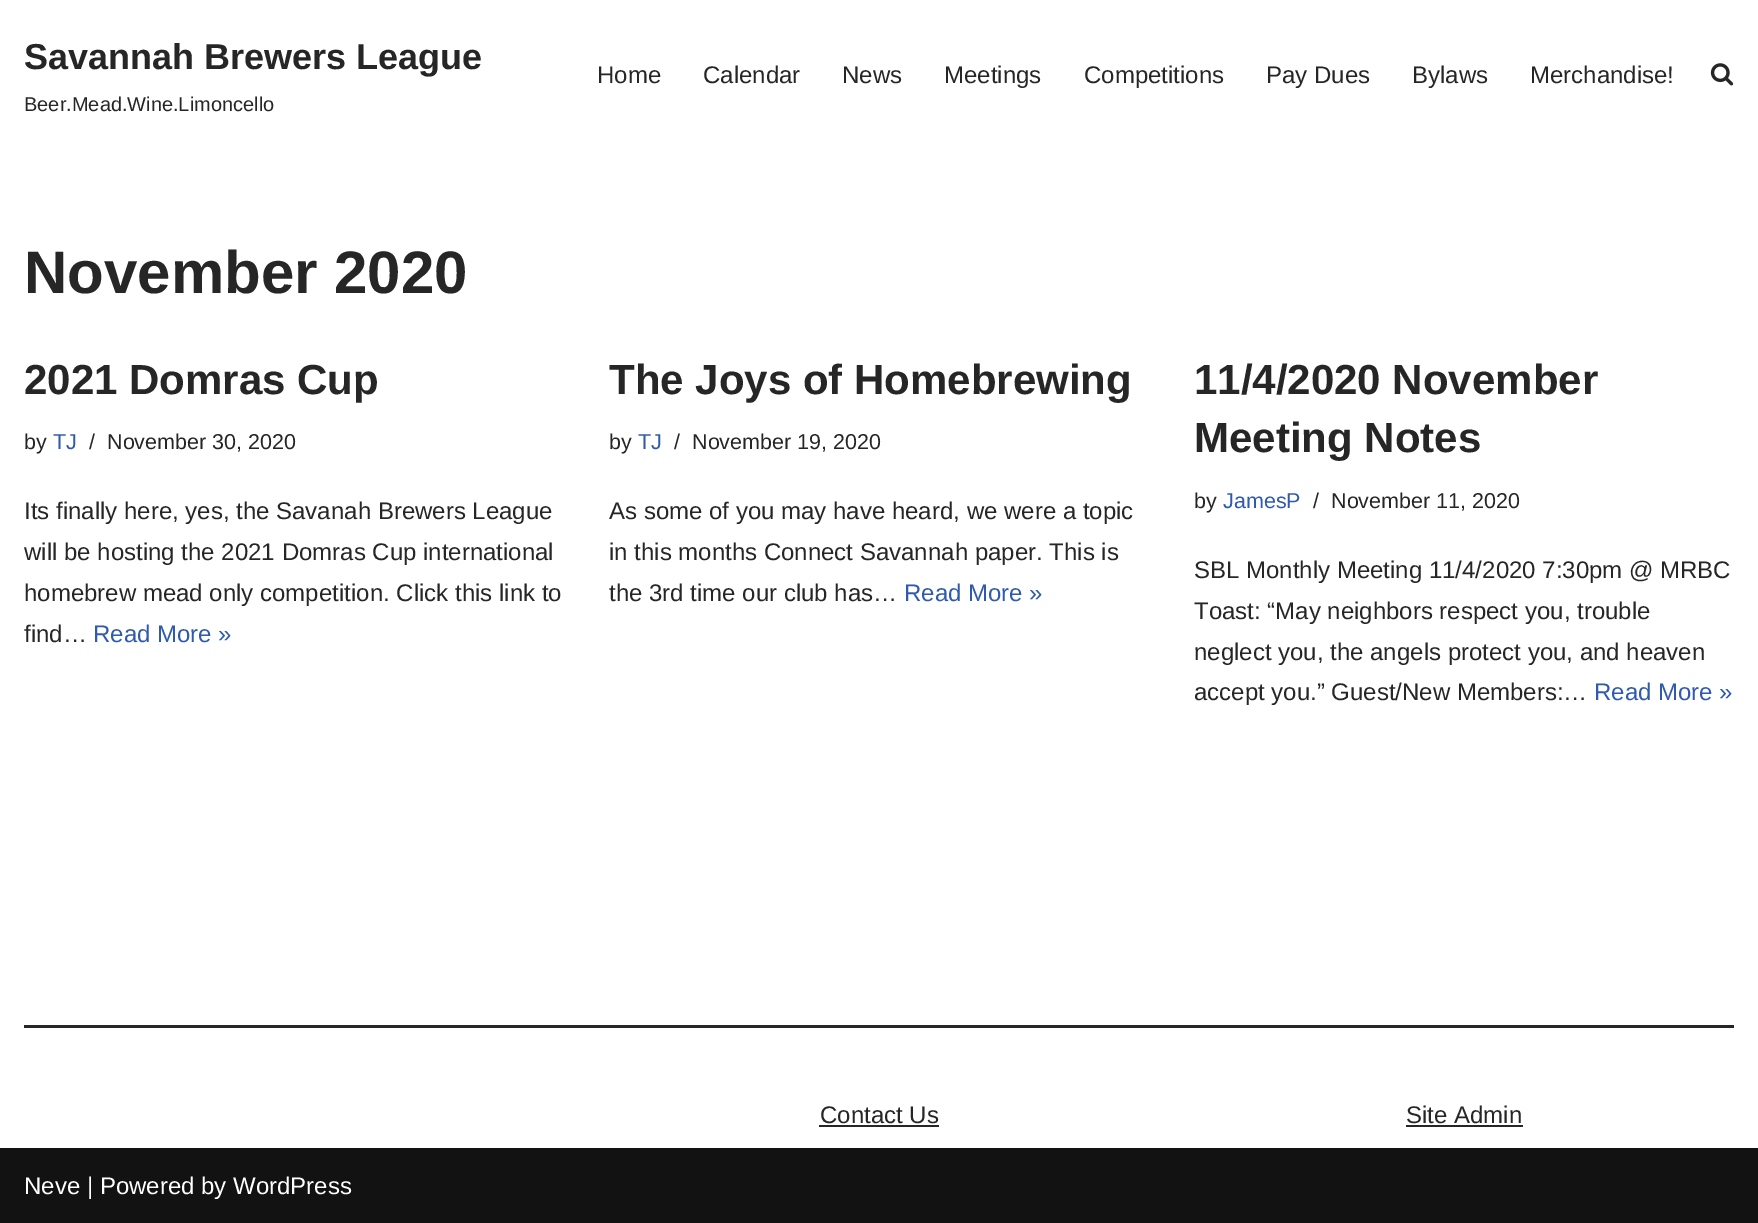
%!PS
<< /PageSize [1758 1223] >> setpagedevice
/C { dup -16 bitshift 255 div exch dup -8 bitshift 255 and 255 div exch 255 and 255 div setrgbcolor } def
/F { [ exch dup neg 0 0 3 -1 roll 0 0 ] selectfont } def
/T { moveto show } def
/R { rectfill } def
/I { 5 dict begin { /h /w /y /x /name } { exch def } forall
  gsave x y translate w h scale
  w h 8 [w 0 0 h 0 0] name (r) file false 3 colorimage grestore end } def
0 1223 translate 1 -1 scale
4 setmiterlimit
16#FFFFFF C
0 0 1758 1223 R
/LiberationSans-Bold 36 F
16#272626 C
(Savannah Brewers League) 24 69 T
/LiberationSans-Regular 20 F
(Beer.Mead.Wine.Limoncello) 24 111 T
/LiberationSans-Regular 24 F
(Home) 597 83 T
(Calendar) 703 83 T
(News) 842 83 T
(Meetings) 944 83 T
(Competitions) 1084 83 T
(Pay Dues) 1266 83 T
(Bylaws) 1412 83 T
(Merchandise!) 1530 83 T
(1.rgb) 1710 63 24 23 I
/LiberationSans-Bold 60 F
(November 2020) 24 293 T
/LiberationSans-Bold 42 F
(2021 Domras Cup) 24 394 T
/LiberationSans-Regular 21.5 F
(by) 24 449 T
16#2F5AAE C
(TJ) 53 449 T
16#272626 C
(/) 89 449 T
(November 30, 2020) 107 449 T
/LiberationSans-Regular 24 F
(Its finally here, yes, the Savanah Brewers League) 24 519 T
(will be hosting the 2021 Domras Cup international) 24 560 T
(homebrew mead only competition. Click this link to) 24 601 T
(find…) 24 642 T
16#2F5AAE C
(Read More ») 93 642 T
/LiberationSans-Bold 42 F
16#272626 C
(The Joys of Homebrewing) 609 394 T
/LiberationSans-Regular 21.5 F
(by) 609 449 T
16#2F5AAE C
(TJ) 638 449 T
16#272626 C
(/) 674 449 T
(November 19, 2020) 692 449 T
/LiberationSans-Regular 24 F
(As some of you may have heard, we were a topic) 609 519 T
(in this months Connect Savannah paper. This is) 609 560 T
(the 3rd time our club has…) 609 601 T
16#2F5AAE C
(Read More ») 904 601 T
/LiberationSans-Bold 42 F
16#272626 C
(11/4/2020 November) 1194 394 T
(Meeting Notes) 1194 452 T
/LiberationSans-Regular 21.5 F
(by) 1194 508 T
16#2F5AAE C
(JamesP) 1223 508 T
16#272626 C
(/) 1313 508 T
(November 11, 2020) 1331 508 T
/LiberationSans-Regular 24 F
(SBL Monthly Meeting 11/4/2020 7:30pm @ MRBC) 1194 578 T
(Toast: “May neighbors respect you, trouble) 1194 619 T
(neglect you, the angels protect you, and heaven) 1194 660 T
(accept you.” Guest/New Members:…) 1194 700 T
16#2F5AAE C
(Read More ») 1594 700 T
16#272626 C
24 1025 1710 3 R
(Contact Us) 820 1123 T
819 1125 120 2 R
(Site Admin) 1406 1123 T
1406 1125 117 2 R
16#121212 C
0 1148 1758 75 R
16#FFFFFF C
(Neve | Powered by WordPress) 24 1194 T
showpage
